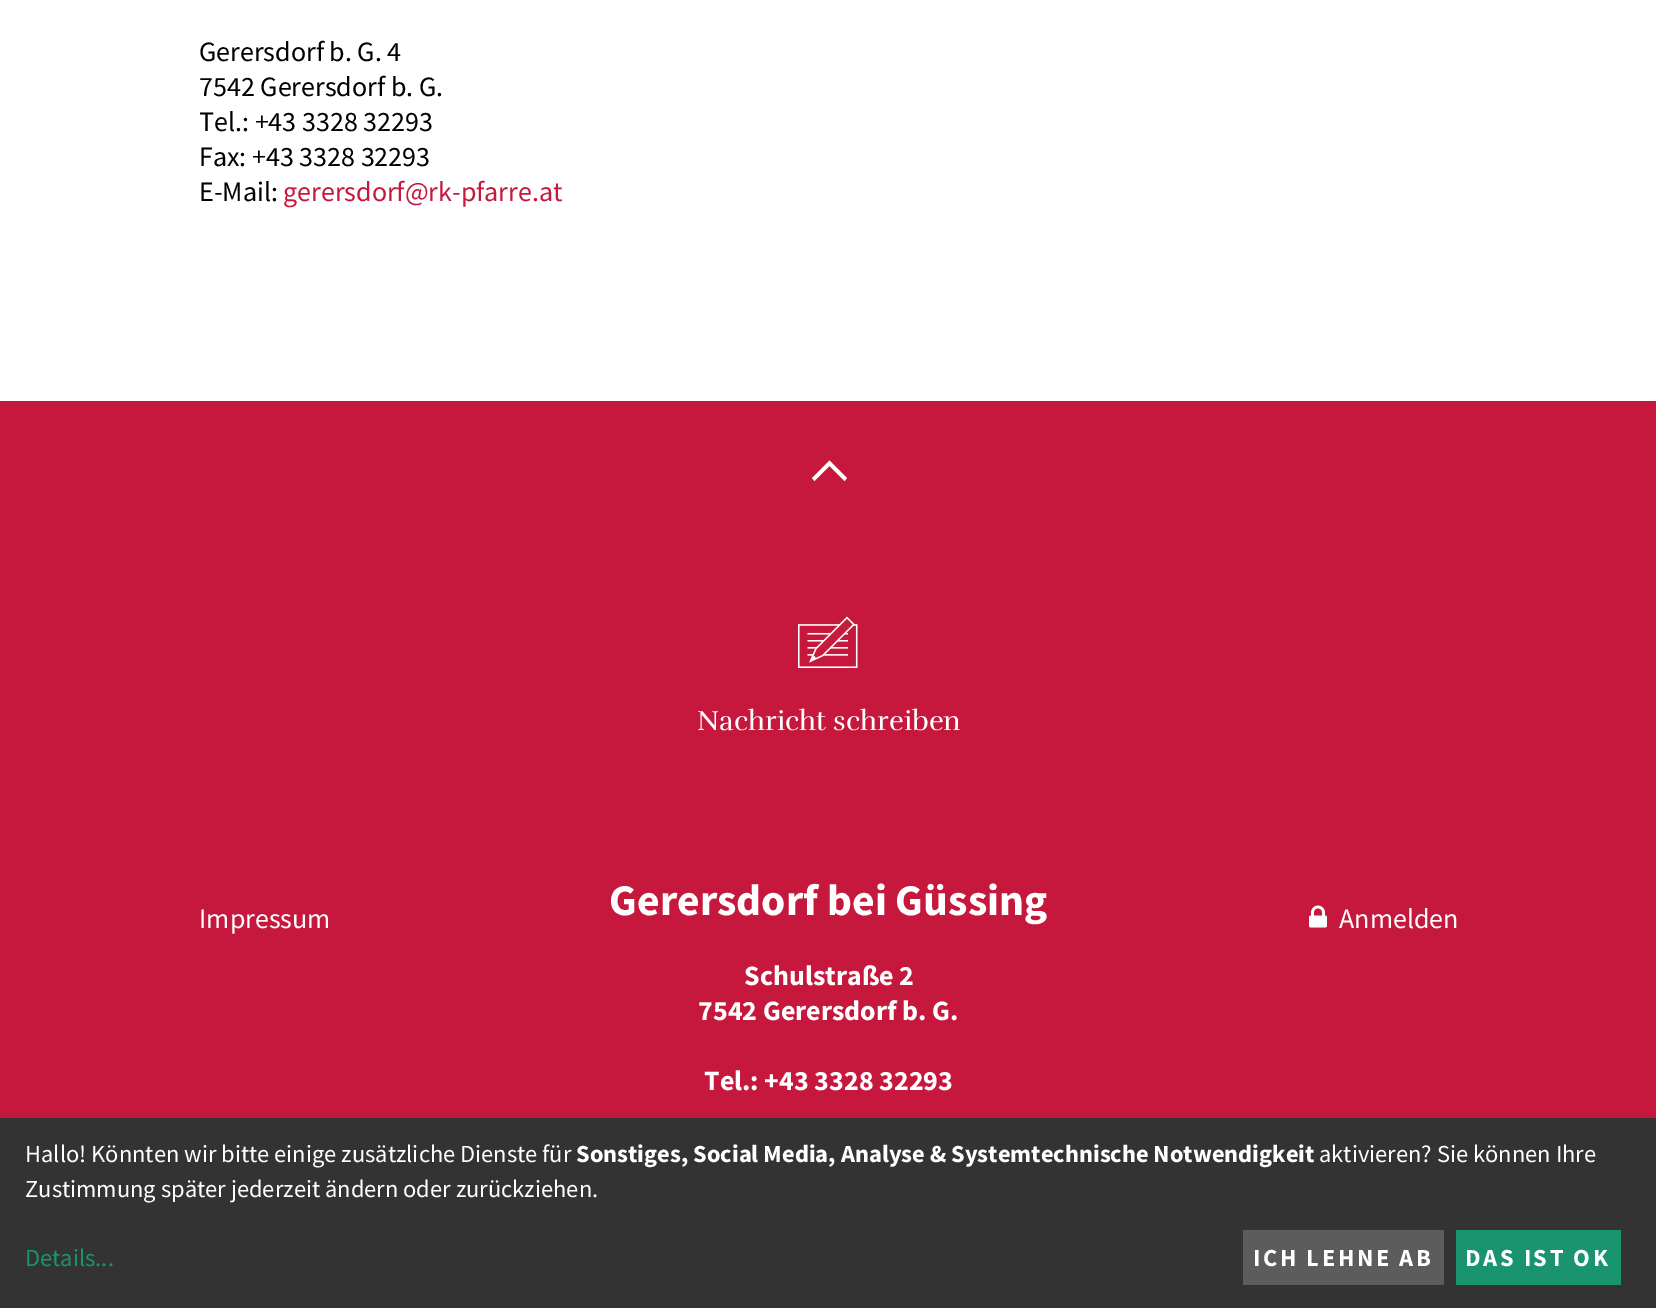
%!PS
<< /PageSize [1656 1308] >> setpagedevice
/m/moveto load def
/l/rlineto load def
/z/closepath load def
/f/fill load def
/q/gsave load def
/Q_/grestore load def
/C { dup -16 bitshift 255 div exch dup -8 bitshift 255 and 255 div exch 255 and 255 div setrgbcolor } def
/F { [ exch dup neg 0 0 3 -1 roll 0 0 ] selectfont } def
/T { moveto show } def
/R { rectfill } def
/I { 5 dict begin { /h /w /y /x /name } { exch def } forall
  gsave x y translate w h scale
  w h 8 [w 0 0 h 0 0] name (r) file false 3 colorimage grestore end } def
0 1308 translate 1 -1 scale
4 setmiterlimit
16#FFFFFF C
0 0 1656 1308 R
/SourceSansPro-Regular 28 F
16#000000 C
(Gerersdorf b. G. 4) 199 61 T
(7542 Gerersdorf b. G.) 199 96 T
q
200 0 1260 208 rectclip
(Tel.: +43 3328 32293) 199 131 T
Q_
(Fax: +43 3328 32293) 199 166 T
(E-Mail:) 199 201 T
16#C6183D C
(gerersdorf@rk-pfarre.at) 283 201 T
0 401 1656 717 R
16#FFFFFF C
814.5 481 m -2.5 -3 l 17.5 -17.5 l 17.5 17.5 l -2.5 3 l -15 -15 l z f
(1.rgb) 798 616 60 52 I
/Rufina-Regular 28 F
(Nachricht schreiben) 697 730 T
/SourceSansPro-Regular 28 F
(Impressum) 199 928 T
/SourceSansPro-Bold 43.75 F
(Gerersdorf bei Güssing) 609 915 T
/SourceSansPro-Bold 28 F
(Schulstraße 2) 744 985 T
(7542 Gerersdorf b. G.) 698 1020 T
(Tel.: +43 3328 32293) 704 1090 T
(2.rgb) 1309 905 18 23 I
/SourceSansPro-Regular 28 F
(Anmelden) 1339 928 T
16#333333 C
0 1118 1656 190 R
/SourceSansPro-Regular 24.5 F
16#FFFFFF C
(Hallo! Könnten wir bitte einige zusätzliche Dienste für) 25 1162 T
/SourceSansPro-Bold 24.5 F
(Sonstiges, Social Media, Analyse & Systemtechnische Notwendigkeit) 576 1162 T
/SourceSansPro-Regular 24.5 F
(aktivieren? Sie können Ihre) 1319 1162 T
(Zustimmung später jederzeit ändern oder zurückziehen.) 25 1197 T
16#1A936F C
(Details...) 25 1266 T
16#5C5C5C C
1243 1230 201 55 R
/SourceSansPro-Bold 24.5 F
16#FFFFFF C
1253 1266 m 2.6 0 (ICH LEHNE AB) ashow
16#1A936F C
1456 1230 165 55 R
16#FFFFFF C
1465 1266 m 2.6 0 (DAS IST OK) ashow
showpage
